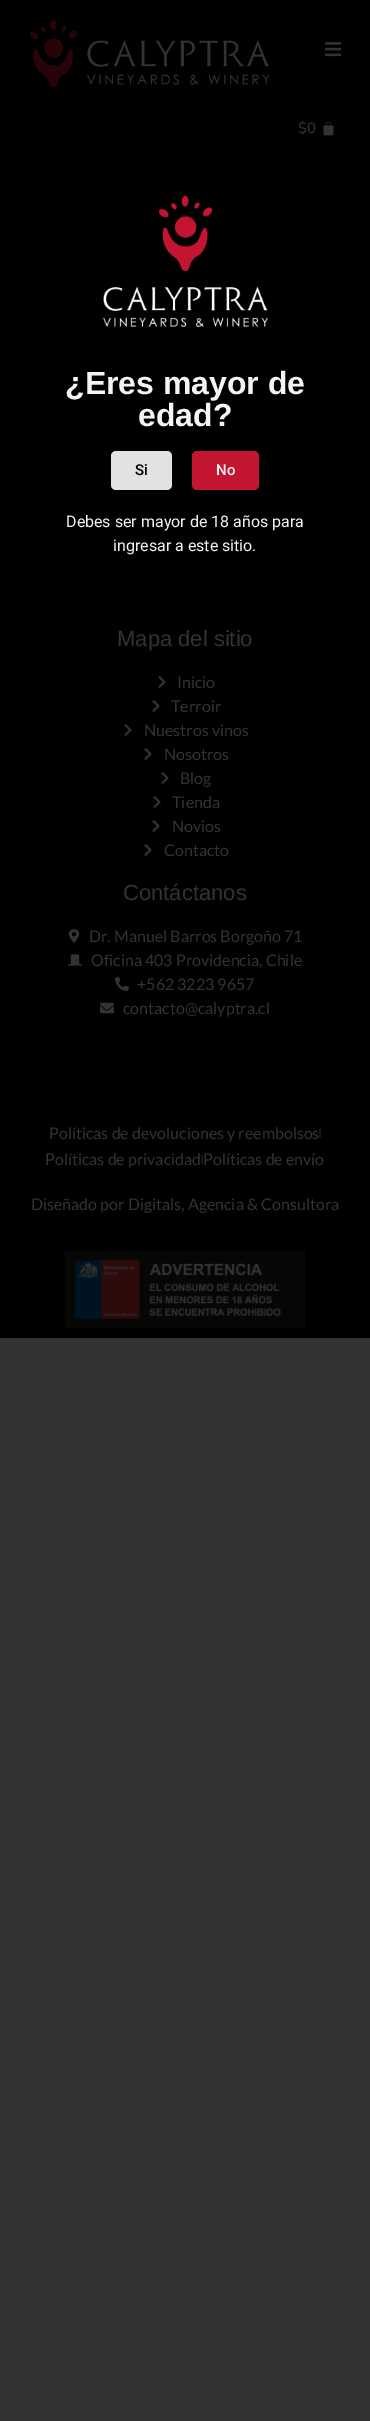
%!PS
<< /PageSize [370 2421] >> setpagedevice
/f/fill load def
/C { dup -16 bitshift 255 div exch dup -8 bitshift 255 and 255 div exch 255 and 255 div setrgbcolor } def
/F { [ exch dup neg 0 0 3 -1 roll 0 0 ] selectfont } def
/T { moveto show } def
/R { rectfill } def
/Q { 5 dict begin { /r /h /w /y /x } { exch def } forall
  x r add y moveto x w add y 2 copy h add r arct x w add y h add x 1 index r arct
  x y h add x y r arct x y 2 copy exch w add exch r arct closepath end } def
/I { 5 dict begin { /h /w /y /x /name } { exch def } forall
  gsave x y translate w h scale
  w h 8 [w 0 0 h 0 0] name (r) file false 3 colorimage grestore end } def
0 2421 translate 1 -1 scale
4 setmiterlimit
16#333333 C
0 0 370 2421 R
16#000000 C
0 0 370 155 R
(1.rgb) 30 20 240 68 I
(2.rgb) 325 42 16 15 I
/Nunito-Medium 15 F
16#333333 C
($0) 298 133 T
(3.rgb) 323 121 11 15 I
16#000000 C
0 155 370 1183 R
(4.rgb) 103 195 165 132 I
/LiberationSans-Bold 32 F
16#F5F5F5 C
(¿Eres mayor de) 65 394 T
(edad?) 138 426 T
16#E2E2E2 C
111 451 61 39 5 Q f
/Roboto-Medium 15 F
16#000000 C
(Si) 135 475 T
16#C31633 C
192 451 67 39 5 Q f
16#F5F5F5 C
(No) 216 475 T
/Roboto-Regular 16 F
(Debes ser mayor de 18 años para) 66 527 T
(ingresar a este sitio.) 113 551 T
/LiberationSans-Regular 22 F
16#333333 C
(Mapa del sitio) 117 646 T
(5.rgb) 158 676 8 12 I
/Lato-Regular 16 F
(Inicio) 177 688 T
(5.rgb) 152 700 8 12 I
(Terroir) 171 712 T
(5.rgb) 124 724 8 12 I
(Nuestros vinos) 144 736 T
(5.rgb) 144 748 8 12 I
(Nosotros) 164 760 T
(5.rgb) 161 772 8 12 I
(Blog) 180 784 T
(5.rgb) 153 796 8 12 I
(Tienda) 172 808 T
(5.rgb) 152 820 8 12 I
(Novios) 172 832 T
(5.rgb) 144 844 8 12 I
(Contacto) 164 856 T
/LiberationSans-Regular 22 F
(Contáctanos) 123 900 T
(6.rgb) 68 929 12 14 I
/Lato-Regular 16 F
(Dr. Manuel Barros Borgoño 71) 89 942 T
(7.rgb) 68 954 14 12 I
(Oficina 403 Providencia, Chile) 91 966 T
(8.rgb) 115 977 14 14 I
(+562 3223 9657) 137 990 T
(9.rgb) 100 1002 14 12 I
(contacto@calyptra.cl) 123 1014 T
(Políticas de devoluciones y reembolsos) 49 1139 T
16#181818 C
319 1129 2 9 R
16#333333 C
(Políticas de privacidad) 45 1165 T
16#181818 C
201 1155 2 9 R
16#333333 C
(Políticas de envío) 203 1165 T
(Diseñado por Digitals, Agencia & Consultora) 31 1210 T
(10.rgb) 65 1251 240 77 I
showpage
